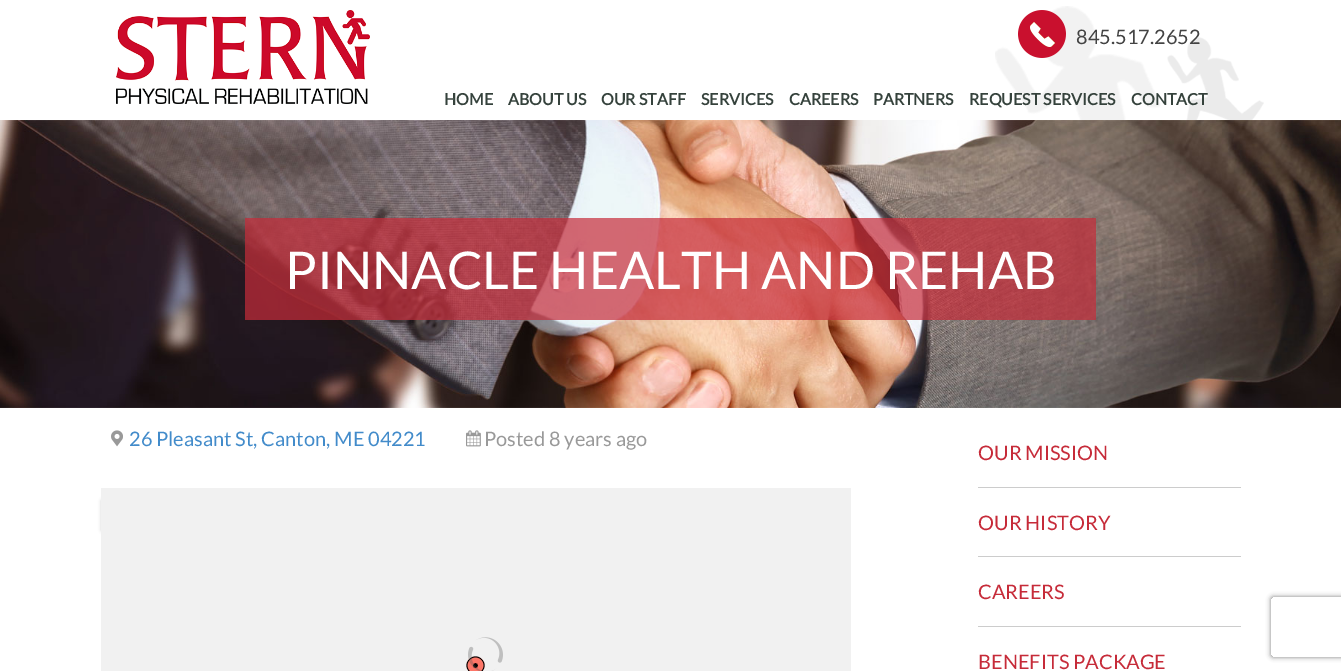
%!PS
<< /PageSize [1341 671] /PageUsesTransparency true >> setpagedevice
/m/moveto load def
/l/rlineto load def
/c/rcurveto load def
/z/closepath load def
/q/gsave load def
/Q_/grestore load def
/C { dup -16 bitshift 255 div exch dup -8 bitshift 255 and 255 div exch 255 and 255 div setrgbcolor } def
/F { [ exch dup neg 0 0 3 -1 roll 0 0 ] selectfont } def
/T { moveto show } def
/R { rectfill } def
/A { dup .setfillconstantalpha .setstrokeconstantalpha } def
/Q { 5 dict begin { /r /h /w /y /x } { exch def } forall
  x r add y moveto x w add y 2 copy h add r arct x w add y h add x 1 index r arct
  x y h add x y r arct x y 2 copy exch w add exch r arct closepath end } def
/S { 12 dict begin { /a /b /q /h /w /y /x } { exch def } forall gsave /was 0 def
  9 -2 -9 { dup b mul 4 div /e exch def 1 sub .425 mul 2.718 exch exp 1 add a .99 .min exch div /now exch def
    1 1 now sub 1 was sub div sub A /was now def
    w h .min e 2 mul add 0 gt { x e sub y e sub w e 2 mul add h e 2 mul add
      q e add b .6 mul add w h .min 2 div e add .min 0 .max Q fill } if } for grestore end } def
/I { 5 dict begin { /h /w /y /x /name } { exch def } forall
  gsave x y translate w h scale
  w h 8 [w 0 0 h 0 0] name (r) file false 3 colorimage grestore end } def
0 .pushpdf14devicefilter
0 671 translate 1 -1 scale
4 setmiterlimit
16#FFFFFF C
0 0 1341 671 R
(1.rgb) 995 6 269 114 I
(2.rgb) 116 10 254 94 I
(3.rgb) 1018 10 48 48 I
/Lato-Regular 20 F
16#444444 C
(845.517.2652) 1076 44 T
/Lato-Bold 16 F
16#35423C C
(HOME) 444 105 T
(ABOUT US) 508 105 T
(OUR STAFF) 601 105 T
(SERVICES) 701 105 T
(CAREERS) 789 105 T
(PARTNERS) 873 105 T
(REQUEST SERVICES) 969 105 T
(CONTACT) 1131 105 T
(4.rgb) 0 120 1341 288 I
0.7 A
16#C62B39 C
245 218 851 102 R
/Lato-Regular 52 F
1 A
16#FFFFFF C
(PINNACLE HEALTH AND REHAB) 285 289 T
(5.rgb) 111 430 12 17 I
/Lato-Regular 20 F
16#428BCA C
(26 Pleasant St, Canton, ME 04221) 129 446 T
(6.rgb) 466 430 15 17 I
16#999999 C
(Posted 8 years ago) 484 446 T
16#000000 C
102 500 26 31 1 2 .3 S
16#F1F1F1 C
101 488 750 183 R
(7.rgb) 466 656 19 15 I
(8.rgb) 468 637 35 34 I
16#CCCCCC C
978 487 263 1 R
16#C62B39 C
(OUR MISSION) 978 460 T
16#CCCCCC C
978 556 263 1 R
16#C62B39 C
(OUR HISTORY) 978 530 T
16#CCCCCC C
978 626 263 1 R
16#C62B39 C
(CAREERS) 978 599 T
(BENEFITS PACKAGE) 978 669 T
q
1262 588 m 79 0 l 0 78 l -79 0 l z 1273 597 m 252 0 l 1 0 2 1 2 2 c 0 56 l 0 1 -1 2 -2 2 c -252 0 l -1 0 -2 -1 -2 -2 c 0 -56 l 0 -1 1 -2 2 -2 c z eoclip newpath
16#808080 C
1271 597 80 60 2 2.5 1 S
Q_
.poppdf14devicefilter showpage
